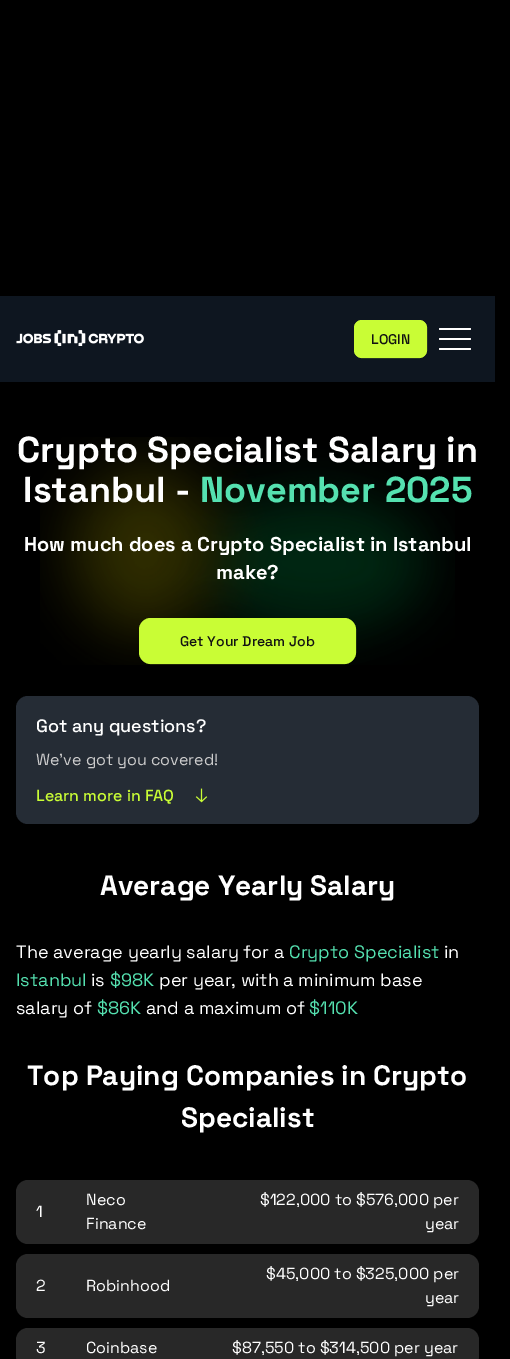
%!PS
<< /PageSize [510 1359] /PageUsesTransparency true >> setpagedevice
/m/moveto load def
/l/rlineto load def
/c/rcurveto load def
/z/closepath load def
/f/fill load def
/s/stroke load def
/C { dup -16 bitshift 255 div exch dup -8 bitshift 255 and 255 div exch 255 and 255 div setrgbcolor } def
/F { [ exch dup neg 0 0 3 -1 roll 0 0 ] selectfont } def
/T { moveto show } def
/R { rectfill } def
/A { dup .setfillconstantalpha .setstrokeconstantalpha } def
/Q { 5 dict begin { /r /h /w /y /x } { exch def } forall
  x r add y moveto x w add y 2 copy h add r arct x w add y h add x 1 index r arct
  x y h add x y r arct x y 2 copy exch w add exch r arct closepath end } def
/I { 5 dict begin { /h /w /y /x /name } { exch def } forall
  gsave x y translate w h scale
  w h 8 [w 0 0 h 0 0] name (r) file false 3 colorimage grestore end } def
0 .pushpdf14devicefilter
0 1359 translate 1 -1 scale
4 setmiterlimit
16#000000 C
0 0 510 1359 R
16#0E1620 C
0 296 495 86 R
(1.rgb) 16 330 128 16 I
16#C9FD35 C
354 320 73 38 8 Q f
0.5 A
354.5 320.5 72 37 7.5 Q s
/SpaceGrotesk-Medium 14 F
1 A
16#121212 C
(LOGIN) 371 344 T
16#FFFFFF C
439 338 32 2 1 Q f
439 328 32 2 1 Q f
439 348 32 2 1 Q f
(2.rgb) 40 437 415 228 I
/SpaceGrotesk-Bold 36 F
(Crypto Specialist Salary in) 17 462 T
(Istanbul -) 23 502 T
16#55E1B0 C
(November 2025) 200 502 T
/SpaceGrotesk-Bold 20 F
16#FFFFFF C
(How much does a Crypto Specialist in Istanbul) 24 551 T
(make?) 216 579 T
16#C9FD35 C
139 618 217 46 12 Q f
0.5 A
139.5 618.5 216 45 11.5 Q s
/SpaceGrotesk-Medium 14 F
1 A
16#121212 C
(Get Your Dream Job) 180 646 T
16#252C35 C
16 696 463 128 12 Q f
/SpaceGrotesk-Medium 18 F
16#FFFFFF C
(Got any questions?) 36 732 T
/SpaceGrotesk-Regular 16 F
16#CCCCCC C
(We’ve got you covered!) 36 765 T
/SpaceGrotesk-Medium 16 F
16#C9FD35 C
(Learn more in FAQ) 36 801 T
(3.rgb) 195 788 13 15 I
/SpaceGrotesk-Bold 28 F
16#FFFFFF C
(Average Yearly Salary) 100 895 T
/SpaceGrotesk-Regular 18 F
(The average yearly salary for a) 16 958 T
16#55E1B0 C
(Crypto Specialist) 289 958 T
16#FFFFFF C
(in) 444 958 T
16#55E1B0 C
(Istanbul) 16 986 T
16#FFFFFF C
(is) 91 986 T
16#55E1B0 C
($98K) 110 986 T
16#FFFFFF C
(per year, with a minimum base) 159 986 T
(salary of) 16 1014 T
16#55E1B0 C
($86K) 97 1014 T
16#FFFFFF C
(and a maximum of) 146 1014 T
16#55E1B0 C
($110K) 309 1014 T
/SpaceGrotesk-Bold 28 F
16#FFFFFF C
(Top Paying Companies in Crypto) 27 1085 T
(Specialist) 181 1127 T
16#282828 C
28 1180 m 38 0 l 0 64 l -38 0 l -6.5 0 -12 -5.5 -12 -12 c 0 -40 l 0 -6.5 5.5 -12 12 -12 c z f
/SpaceGrotesk-Regular 16 F
16#FFFFFF C
(1) 36 1217 T
16#282828 C
66 1180 143 64 R
16#FFFFFF C
(Neco) 86 1205 T
(Finance) 86 1229 T
16#282828 C
209 1180 m 258 0 l 6.5 0 12 5.5 12 12 c 0 40 l 0 6.5 -5.5 12 -12 12 c -258 0 l z f
16#FFFFFF C
($122,000 to $576,000 per) 260 1205 T
(year) 425 1229 T
16#282828 C
28 1254 m 38 0 l 0 64 l -38 0 l -6.5 0 -12 -5.5 -12 -12 c 0 -40 l 0 -6.5 5.5 -12 12 -12 c z f
16#FFFFFF C
(2) 36 1291 T
16#282828 C
66 1254 143 64 R
16#FFFFFF C
(Robinhood) 86 1291 T
16#282828 C
209 1254 m 258 0 l 6.5 0 12 5.5 12 12 c 0 40 l 0 6.5 -5.5 12 -12 12 c -258 0 l z f
16#FFFFFF C
($45,000 to $325,000 per) 266 1279 T
(year) 425 1303 T
16#282828 C
28 1328 m 38 0 l 0 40 l -38 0 l -6.5 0 -12 -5.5 -12 -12 c 0 -16 l 0 -6.5 5.5 -12 12 -12 c z f
16#FFFFFF C
(3) 36 1353 T
16#282828 C
66 1328 143 31 R
16#FFFFFF C
(Coinbase) 86 1353 T
16#282828 C
209 1328 m 258 0 l 6.5 0 12 5.5 12 12 c 0 16 l 0 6.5 -5.5 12 -12 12 c -258 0 l z f
16#FFFFFF C
($87,550 to $314,500 per year) 232 1353 T
.poppdf14devicefilter showpage
